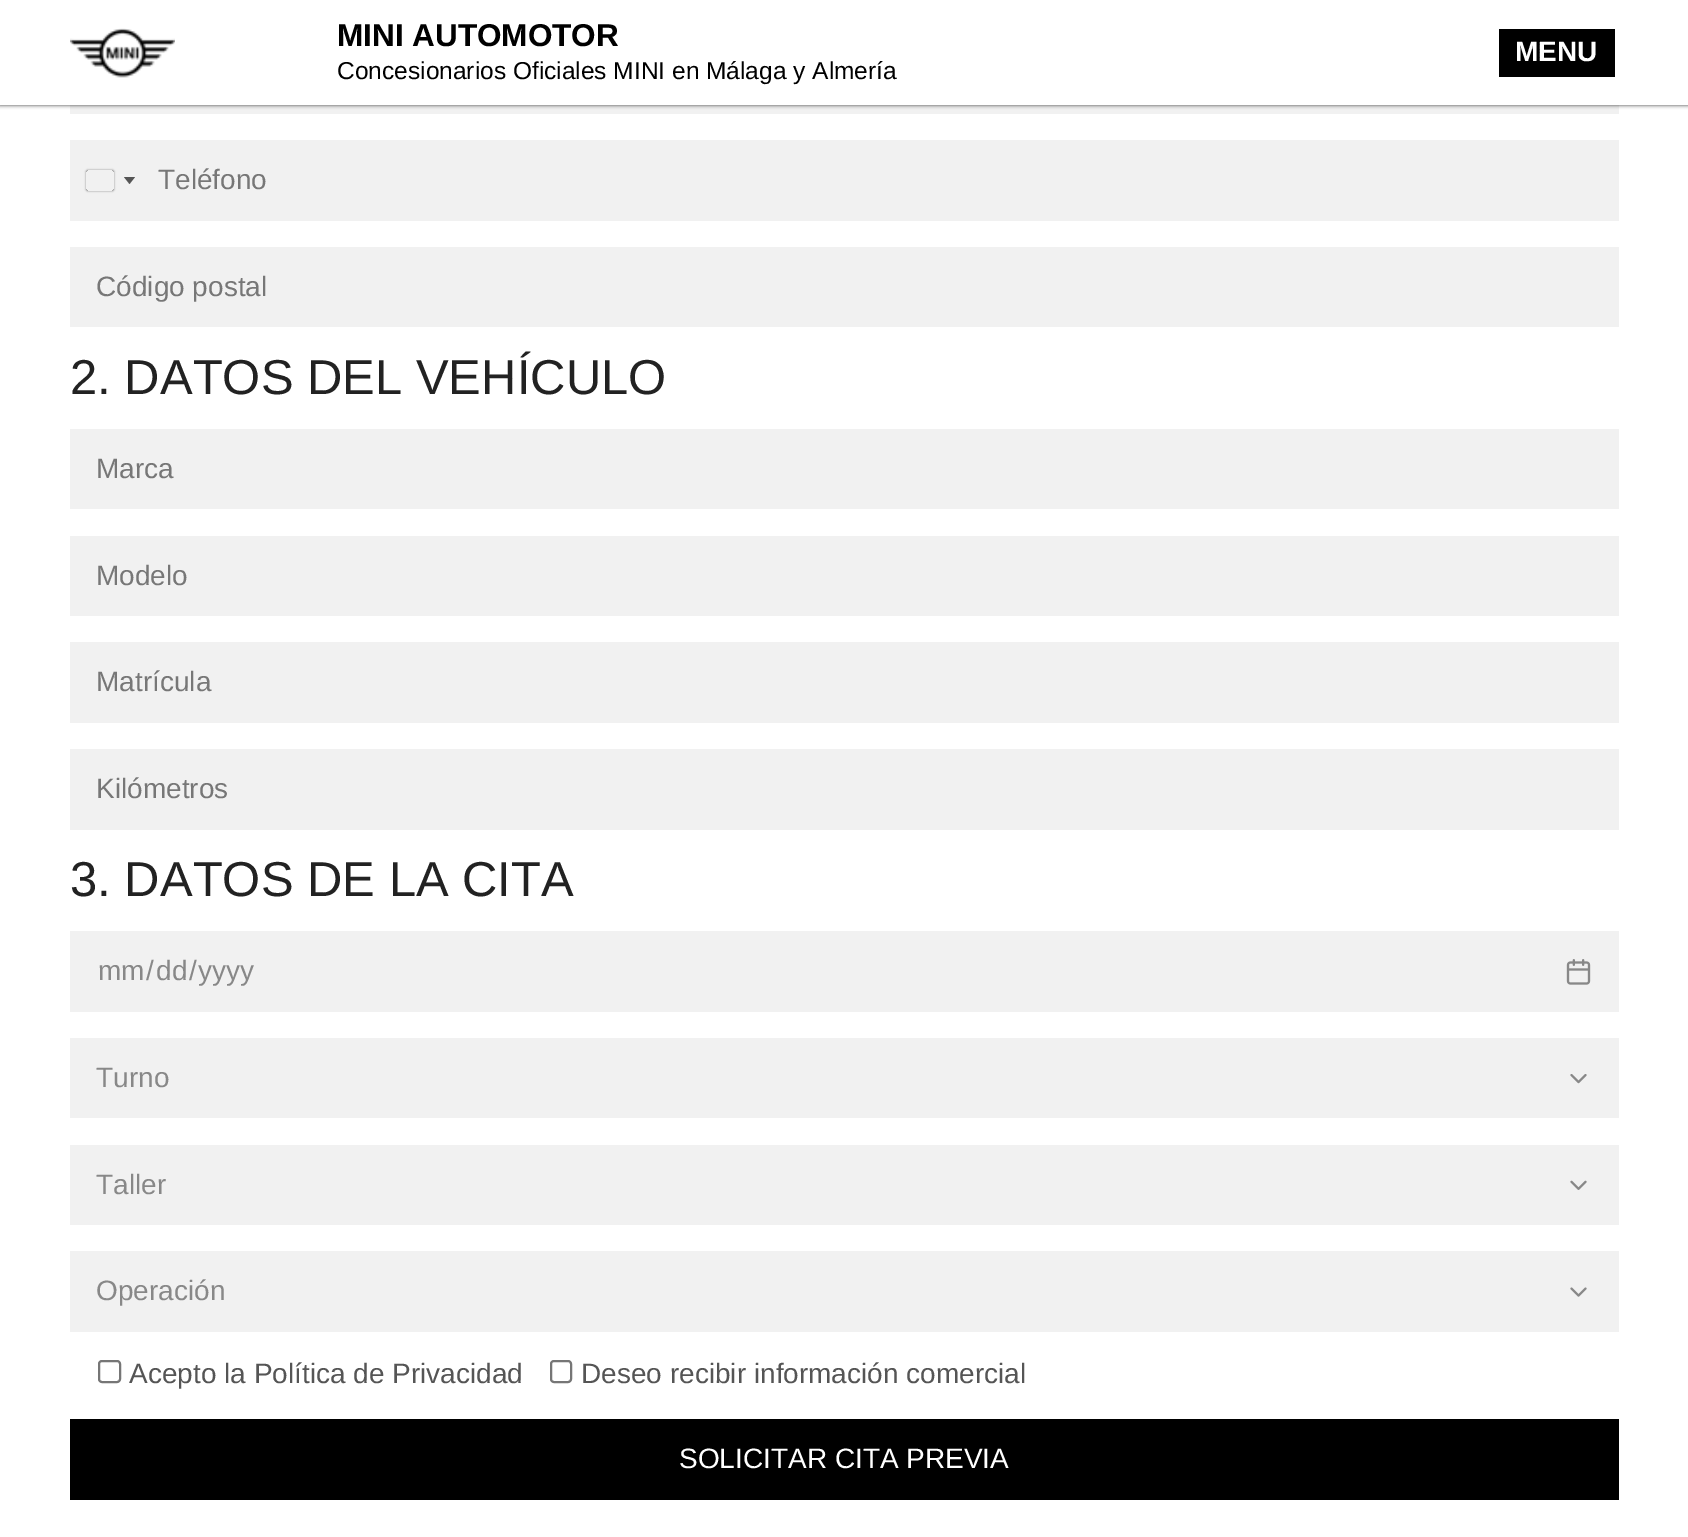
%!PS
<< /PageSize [1688 1537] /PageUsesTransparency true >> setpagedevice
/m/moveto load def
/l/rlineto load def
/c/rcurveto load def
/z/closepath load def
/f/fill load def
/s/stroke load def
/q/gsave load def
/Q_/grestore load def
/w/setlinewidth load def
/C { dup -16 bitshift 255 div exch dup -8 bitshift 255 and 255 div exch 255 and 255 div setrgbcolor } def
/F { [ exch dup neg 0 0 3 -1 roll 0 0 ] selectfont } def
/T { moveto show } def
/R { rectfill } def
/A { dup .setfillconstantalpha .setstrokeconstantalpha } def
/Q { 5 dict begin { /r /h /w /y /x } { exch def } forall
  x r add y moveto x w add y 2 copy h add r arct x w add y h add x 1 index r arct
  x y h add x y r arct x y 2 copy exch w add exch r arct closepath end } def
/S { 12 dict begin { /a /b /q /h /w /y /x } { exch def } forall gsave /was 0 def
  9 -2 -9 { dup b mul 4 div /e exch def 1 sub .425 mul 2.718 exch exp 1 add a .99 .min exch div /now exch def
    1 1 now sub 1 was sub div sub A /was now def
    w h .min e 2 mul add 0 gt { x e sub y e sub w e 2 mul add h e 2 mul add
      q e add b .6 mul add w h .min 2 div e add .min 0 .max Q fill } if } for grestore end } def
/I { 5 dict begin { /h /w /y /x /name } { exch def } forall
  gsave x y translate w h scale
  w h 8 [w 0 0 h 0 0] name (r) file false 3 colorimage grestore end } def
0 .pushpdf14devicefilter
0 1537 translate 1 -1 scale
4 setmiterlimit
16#FFFFFF C
0 0 1688 1537 R
16#F1F1F1 C
70 105 1549 9 R
16#333333 C
0 0 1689 105 0 2 1 S
16#FFFFFF C
0 0 1688 105 R
(1.rgb) 70 28 105 50 I
/LiberationSans-Bold 31.5 F
16#000000 C
(MINI AUTOMOTOR) 337 46 T
/LiberationSans-Regular 24.5 F
(Concesionarios Oficiales MINI en Málaga y Almería) 337 79 T
1499 29 116 48 R
/LiberationSans-Bold 28 F
16#FFFFFF C
(MENU) 1515 61 T
16#F1F1F1 C
70 140 1549 81 R
q
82 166 m 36 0 l 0 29 l -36 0 l z 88 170 m 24 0 l 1 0 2 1 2 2 c 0 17 l 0 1 -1 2 -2 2 c -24 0 l -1 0 -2 -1 -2 -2 c 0 -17 l 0 -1 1 -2 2 -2 c z eoclip newpath
16#888888 C
86 170 28 21 2 1 1 S
Q_
16#555555 C
124 177 m 11 0 l -5.5 7 l z f
/LiberationSans-Regular 28 F
16#777777 C
(Teléfono) 158 189 T
16#F1F1F1 C
70 247 1549 80 R
16#777777 C
(Código postal) 96 296 T
/LiberationSans-Regular 49 F
16#222222 C
(2. DATOS DEL VEHÍCULO) 70 394 T
16#F1F1F1 C
70 429 1549 80 R
/LiberationSans-Regular 28 F
16#777777 C
(Marca) 96 478 T
16#F1F1F1 C
70 536 1549 80 R
16#777777 C
(Modelo) 96 585 T
16#F1F1F1 C
70 642 1549 81 R
16#777777 C
(Matrícula) 96 691 T
16#F1F1F1 C
70 749 1549 81 R
16#777777 C
(Kilómetros) 96 798 T
/LiberationSans-Regular 49 F
16#222222 C
(3. DATOS DE LA CITA) 70 896 T
16#F1F1F1 C
70 931 1549 81 R
/LiberationSans-Regular 28 F
16#888888 C
(mm) 98 980 T
(/) 146 980 T
(dd) 156 980 T
(/) 189 980 T
(yyyy) 198 980 T
(2.rgb) 1566 959 25 26 I
16#F1F1F1 C
70 1038 1549 80 R
16#888888 C
(Turno) 96 1087 T
(3.rgb) 1570 1074 17 10 I
16#F1F1F1 C
70 1145 1549 80 R
16#888888 C
(Taller) 96 1194 T
(4.rgb) 1570 1180 17 10 I
16#F1F1F1 C
70 1251 1549 81 R
16#888888 C
(Operación) 96 1300 T
(5.rgb) 1570 1287 17 10 I
16#767676 C
2 w
99 1361 21 21 3 Q s
16#555555 C
(Acepto la Política de Privacidad) 129 1383 T
16#767676 C
551 1361 20 21 3 Q s
16#555555 C
(Deseo recibir información comercial) 581 1383 T
16#000000 C
70 1419 1549 81 R
16#FFFFFF C
(SOLICITAR CITA PREVIA) 679 1468 T
.poppdf14devicefilter showpage
